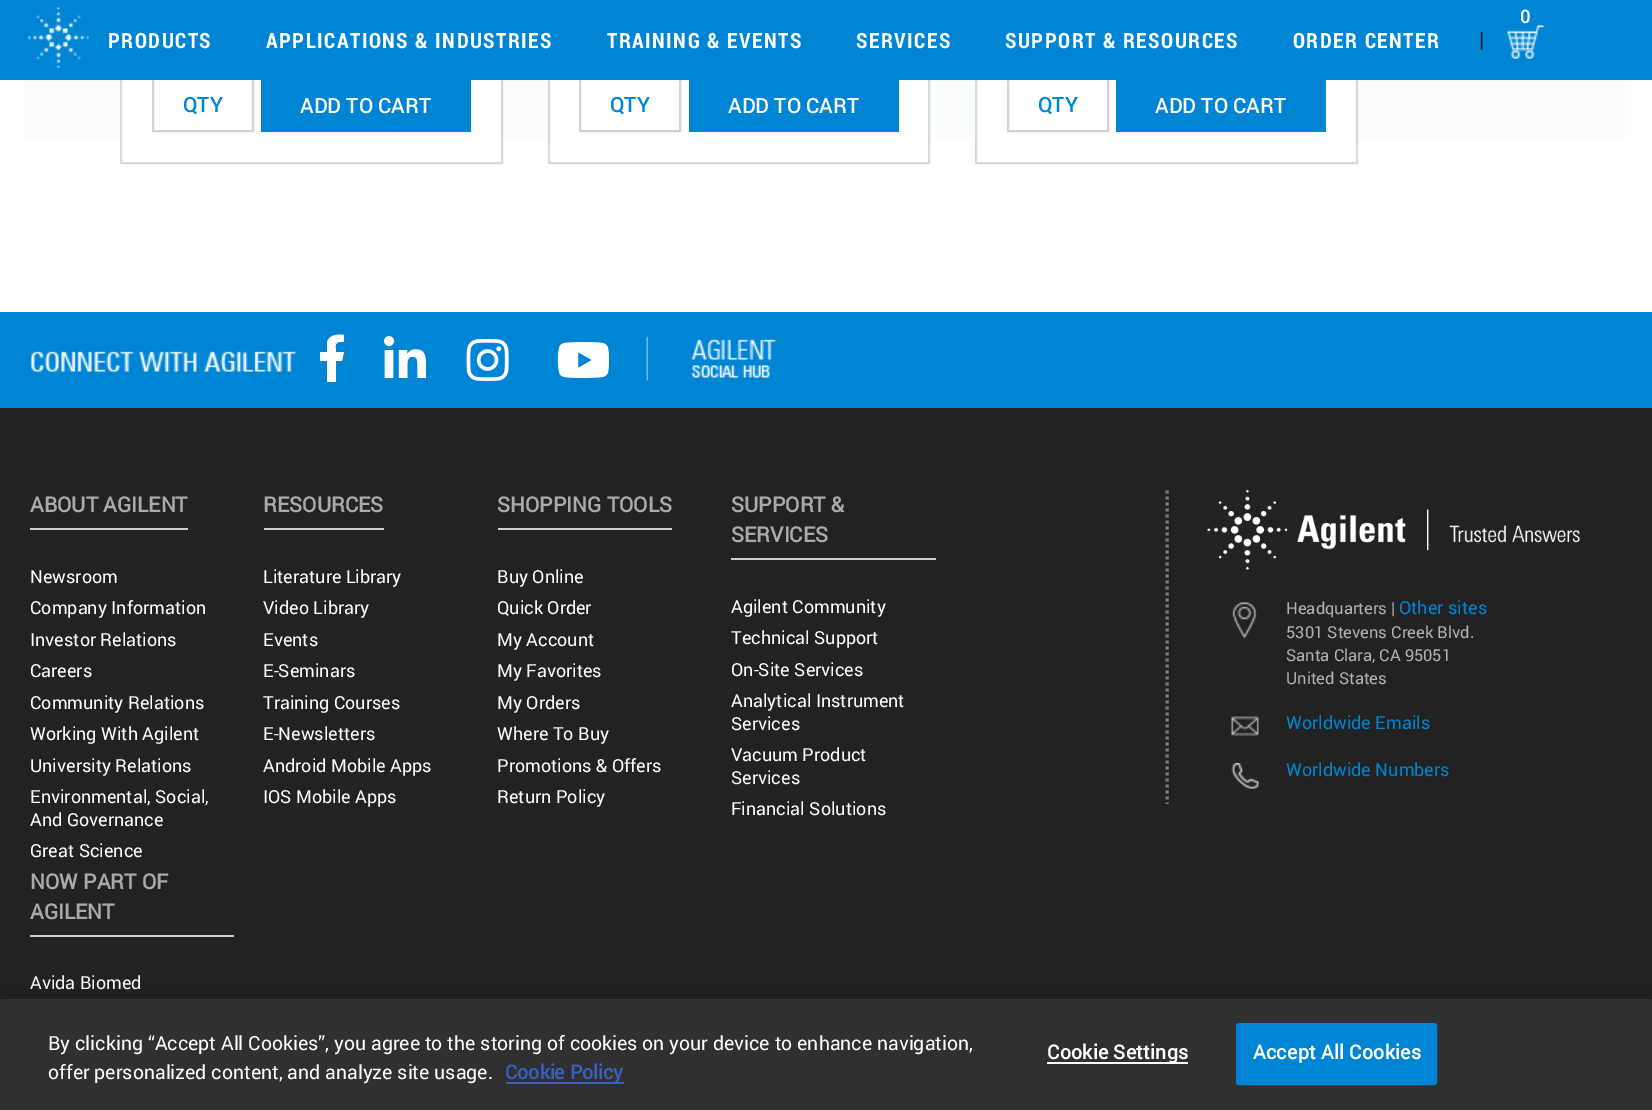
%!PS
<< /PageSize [1652 1110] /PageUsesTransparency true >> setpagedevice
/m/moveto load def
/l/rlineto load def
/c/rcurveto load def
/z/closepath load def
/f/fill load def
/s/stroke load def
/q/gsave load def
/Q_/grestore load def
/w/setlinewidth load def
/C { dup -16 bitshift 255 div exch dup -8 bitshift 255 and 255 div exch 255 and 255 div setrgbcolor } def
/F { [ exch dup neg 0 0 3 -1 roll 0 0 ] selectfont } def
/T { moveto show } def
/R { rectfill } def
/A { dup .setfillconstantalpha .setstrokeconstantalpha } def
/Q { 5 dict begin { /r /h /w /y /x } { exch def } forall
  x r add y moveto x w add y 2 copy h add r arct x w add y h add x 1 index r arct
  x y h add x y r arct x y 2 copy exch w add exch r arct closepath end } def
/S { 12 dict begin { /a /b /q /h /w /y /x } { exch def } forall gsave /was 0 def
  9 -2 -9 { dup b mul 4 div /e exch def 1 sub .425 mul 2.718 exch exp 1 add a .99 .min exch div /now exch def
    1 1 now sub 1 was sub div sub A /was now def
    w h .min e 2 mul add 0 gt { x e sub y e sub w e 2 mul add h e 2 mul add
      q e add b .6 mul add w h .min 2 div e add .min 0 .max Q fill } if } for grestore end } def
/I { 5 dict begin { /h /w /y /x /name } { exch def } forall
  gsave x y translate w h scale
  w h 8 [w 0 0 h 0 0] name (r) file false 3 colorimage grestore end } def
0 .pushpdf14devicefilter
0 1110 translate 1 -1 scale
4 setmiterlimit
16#FFFFFF C
0 0 1652 1110 R
q 23 80 m 1608 0 l 0 58 l -1608 0 l z clip newpath
<< /ShadingType 2 /ColorSpace /DeviceRGB /Coords [827 -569 827 252] /Extend [true true] /Function << /FunctionType 2 /Domain [0 1] /C0 [.929 .937 .941] /C1 [1 1 1] /N 1 >> >> shfill Q_
122 80 379 58 R
16#D4D9DD C
2 w
121 -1 381 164 rectstroke
16#D2D2D2 C
153 78 100 53 rectstroke
16#FFFFFF C
550 80 378 58 R
16#D4D9DD C
549 -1 380 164 rectstroke
16#D2D2D2 C
580 78 100 53 rectstroke
16#FFFFFF C
977 80 379 58 R
16#D4D9DD C
976 -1 381 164 rectstroke
16#D2D2D2 C
1008 78 100 53 rectstroke
16#0085D5 C
0 0 1652 80 R
(1.rgb) 28 7 61 61 I
/Roboto-Bold 18 F
16#FFFFFF C
1520 23 m 1.5 0 (0) ashow
(2.rgb) 1507 25 37 34 I
/RobotoCondensed-Bold 21 F
108 48 m 1.5 0 (PRODUCTS) ashow
266 48 m 1.5 0 (APPLICATIONS & INDUSTRIES) ashow
607 48 m 1.5 0 (TRAINING & EVENTS) ashow
856 48 m 1.5 0 (SERVICES) ashow
1005 48 m 1.5 0 (SUPPORT & RESOURCES) ashow
1293 48 m 1.5 0 (ORDER CENTER) ashow
/Roboto-Regular 21 F
16#202020 C
(|) 1479 47 T
/Roboto-Medium 21 F
16#0085D5 C
(QTY) 183 112 T
261 80 210 52 R
16#FFFFFF C
(ADD TO CART) 300 113 T
16#0085D5 C
(QTY) 610 112 T
689 80 210 52 R
16#FFFFFF C
(ADD TO CART) 728 113 T
16#0085D5 C
(QTY) 1038 112 T
1116 80 210 52 R
16#FFFFFF C
(ADD TO CART) 1155 113 T
16#0085D5 C
0 312 1652 96 R
(3.rgb) 30 351 266 21 I
16#FFFFFF C
340 342 m -6 0 -4 6 -4 10 c 8 0 l -2 9 l -6 0 l 0 21 l -9 0 l 0 -21 l -7 0 l 0 -9 l 7 0 l 0 -9 l 1 -8 10 -9 17 -8 c 0 7 l z f
(4.rgb) 384 336 42 42 I
(5.rgb) 466 339 43 42 I
(6.rgb) 557 342 53 36 I
(7.rgb) 646 336 2 45 I
(8.rgb) 691 339 85 39 I
16#222222 C
0 408 1652 591 R
/Roboto-Bold 21 F
16#AAAAAA C
(ABOUT AGILENT) 30 512 T
16#CFCFCF C
30 528 158 2 R
/Roboto-Regular 18 F
16#FFFFFF C
(Newsroom) 30 583 T
(Company Information) 30 614 T
(Investor Relations) 30 646 T
(Careers) 30 677 T
(Community Relations) 30 709 T
(Working With Agilent) 30 740 T
(University Relations) 30 772 T
(Environmental, Social,) 30 803 T
(And Governance) 30 826 T
(Great Science) 30 857 T
/Roboto-Bold 21 F
16#AAAAAA C
(RESOURCES) 263 512 T
16#CFCFCF C
264 528 120 2 R
/Roboto-Regular 18 F
16#FFFFFF C
(Literature Library) 263 583 T
(Video Library) 263 614 T
(Events) 263 646 T
(E-Seminars) 263 677 T
(Training Courses) 263 709 T
(E-Newsletters) 263 740 T
(Android Mobile Apps) 263 772 T
(IOS Mobile Apps) 263 803 T
/Roboto-Bold 21 F
16#AAAAAA C
(SHOPPING TOOLS) 497 512 T
16#CFCFCF C
498 528 174 2 R
/Roboto-Regular 18 F
16#FFFFFF C
(Buy Online) 497 583 T
(Quick Order) 497 614 T
(My Account) 497 646 T
(My Favorites) 497 677 T
(My Orders) 497 709 T
(Where To Buy) 497 740 T
(Promotions & Offers) 497 772 T
(Return Policy) 497 803 T
/Roboto-Bold 21 F
16#AAAAAA C
(SUPPORT &) 731 512 T
(SERVICES) 731 542 T
16#CFCFCF C
731 558 205 2 R
/Roboto-Regular 18 F
16#FFFFFF C
(Agilent Community) 731 613 T
(Technical Support) 731 644 T
(On-Site Services) 731 676 T
(Analytical Instrument) 731 707 T
(Services) 731 730 T
(Vacuum Product) 731 761 T
(Services) 731 784 T
(Financial Solutions) 731 815 T
/Roboto-Bold 21 F
16#AAAAAA C
(NOW PART OF) 30 889 T
(AGILENT) 30 919 T
16#CFCFCF C
30 935 204 2 R
/Roboto-Regular 18 F
16#FFFFFF C
(Avida Biomed) 30 989 T
16#808080 C
3 w
[3 3] 0 setdash
1167 490.5 m 0 313.5 l s
(9.rgb) 1207 490 373 80 I
(10.rgb) 1232 602 26 37 I
/Roboto-Regular 16.5 F
16#B2B2B2 C
(Headquarters |) 1286 614 T
/Roboto-Regular 18 F
16#0085D5 C
(Other sites) 1399 614 T
/Roboto-Regular 16.5 F
16#B2B2B2 C
(5301 Stevens Creek Blvd.) 1286 638 T
(Santa Clara, CA 95051) 1286 661 T
(United States) 1286 684 T
(11.rgb) 1231 716 28 20 I
/Roboto-Regular 18 F
16#0085D5 C
(Worldwide Emails) 1286 729 T
(12.rgb) 1231 763 28 26 I
(Worldwide Numbers) 1286 776 T
16#000000 C
0 999 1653 111 0 13.5 .2 S
16#303030 C
0 999 1652 111 R
/Roboto-Regular 19.5 F
16#FFFFFF C
(By clicking “Accept All Cookies”, you agree to the storing of cookies on your device to enhance navigation,) 48 1050 T
(offer personalized content, and analyze site usage.) 48 1079 T
16#3860BE C
506 1082 118 2 R
/Roboto-Bold 19.5 F
(Cookie Policy) 505 1079 T
16#FFFFFF C
1047 1062 141 2 R
1047 1059 m .25 0 (Cookie Settings) ashow
16#0085D5 C
1237 1024 199 60 2 Q q f Q_
2 w
[] 0 setdash
s
16#FFFFFF C
1253 1059 m .25 0 (Accept All Cookies) ashow
.poppdf14devicefilter showpage
